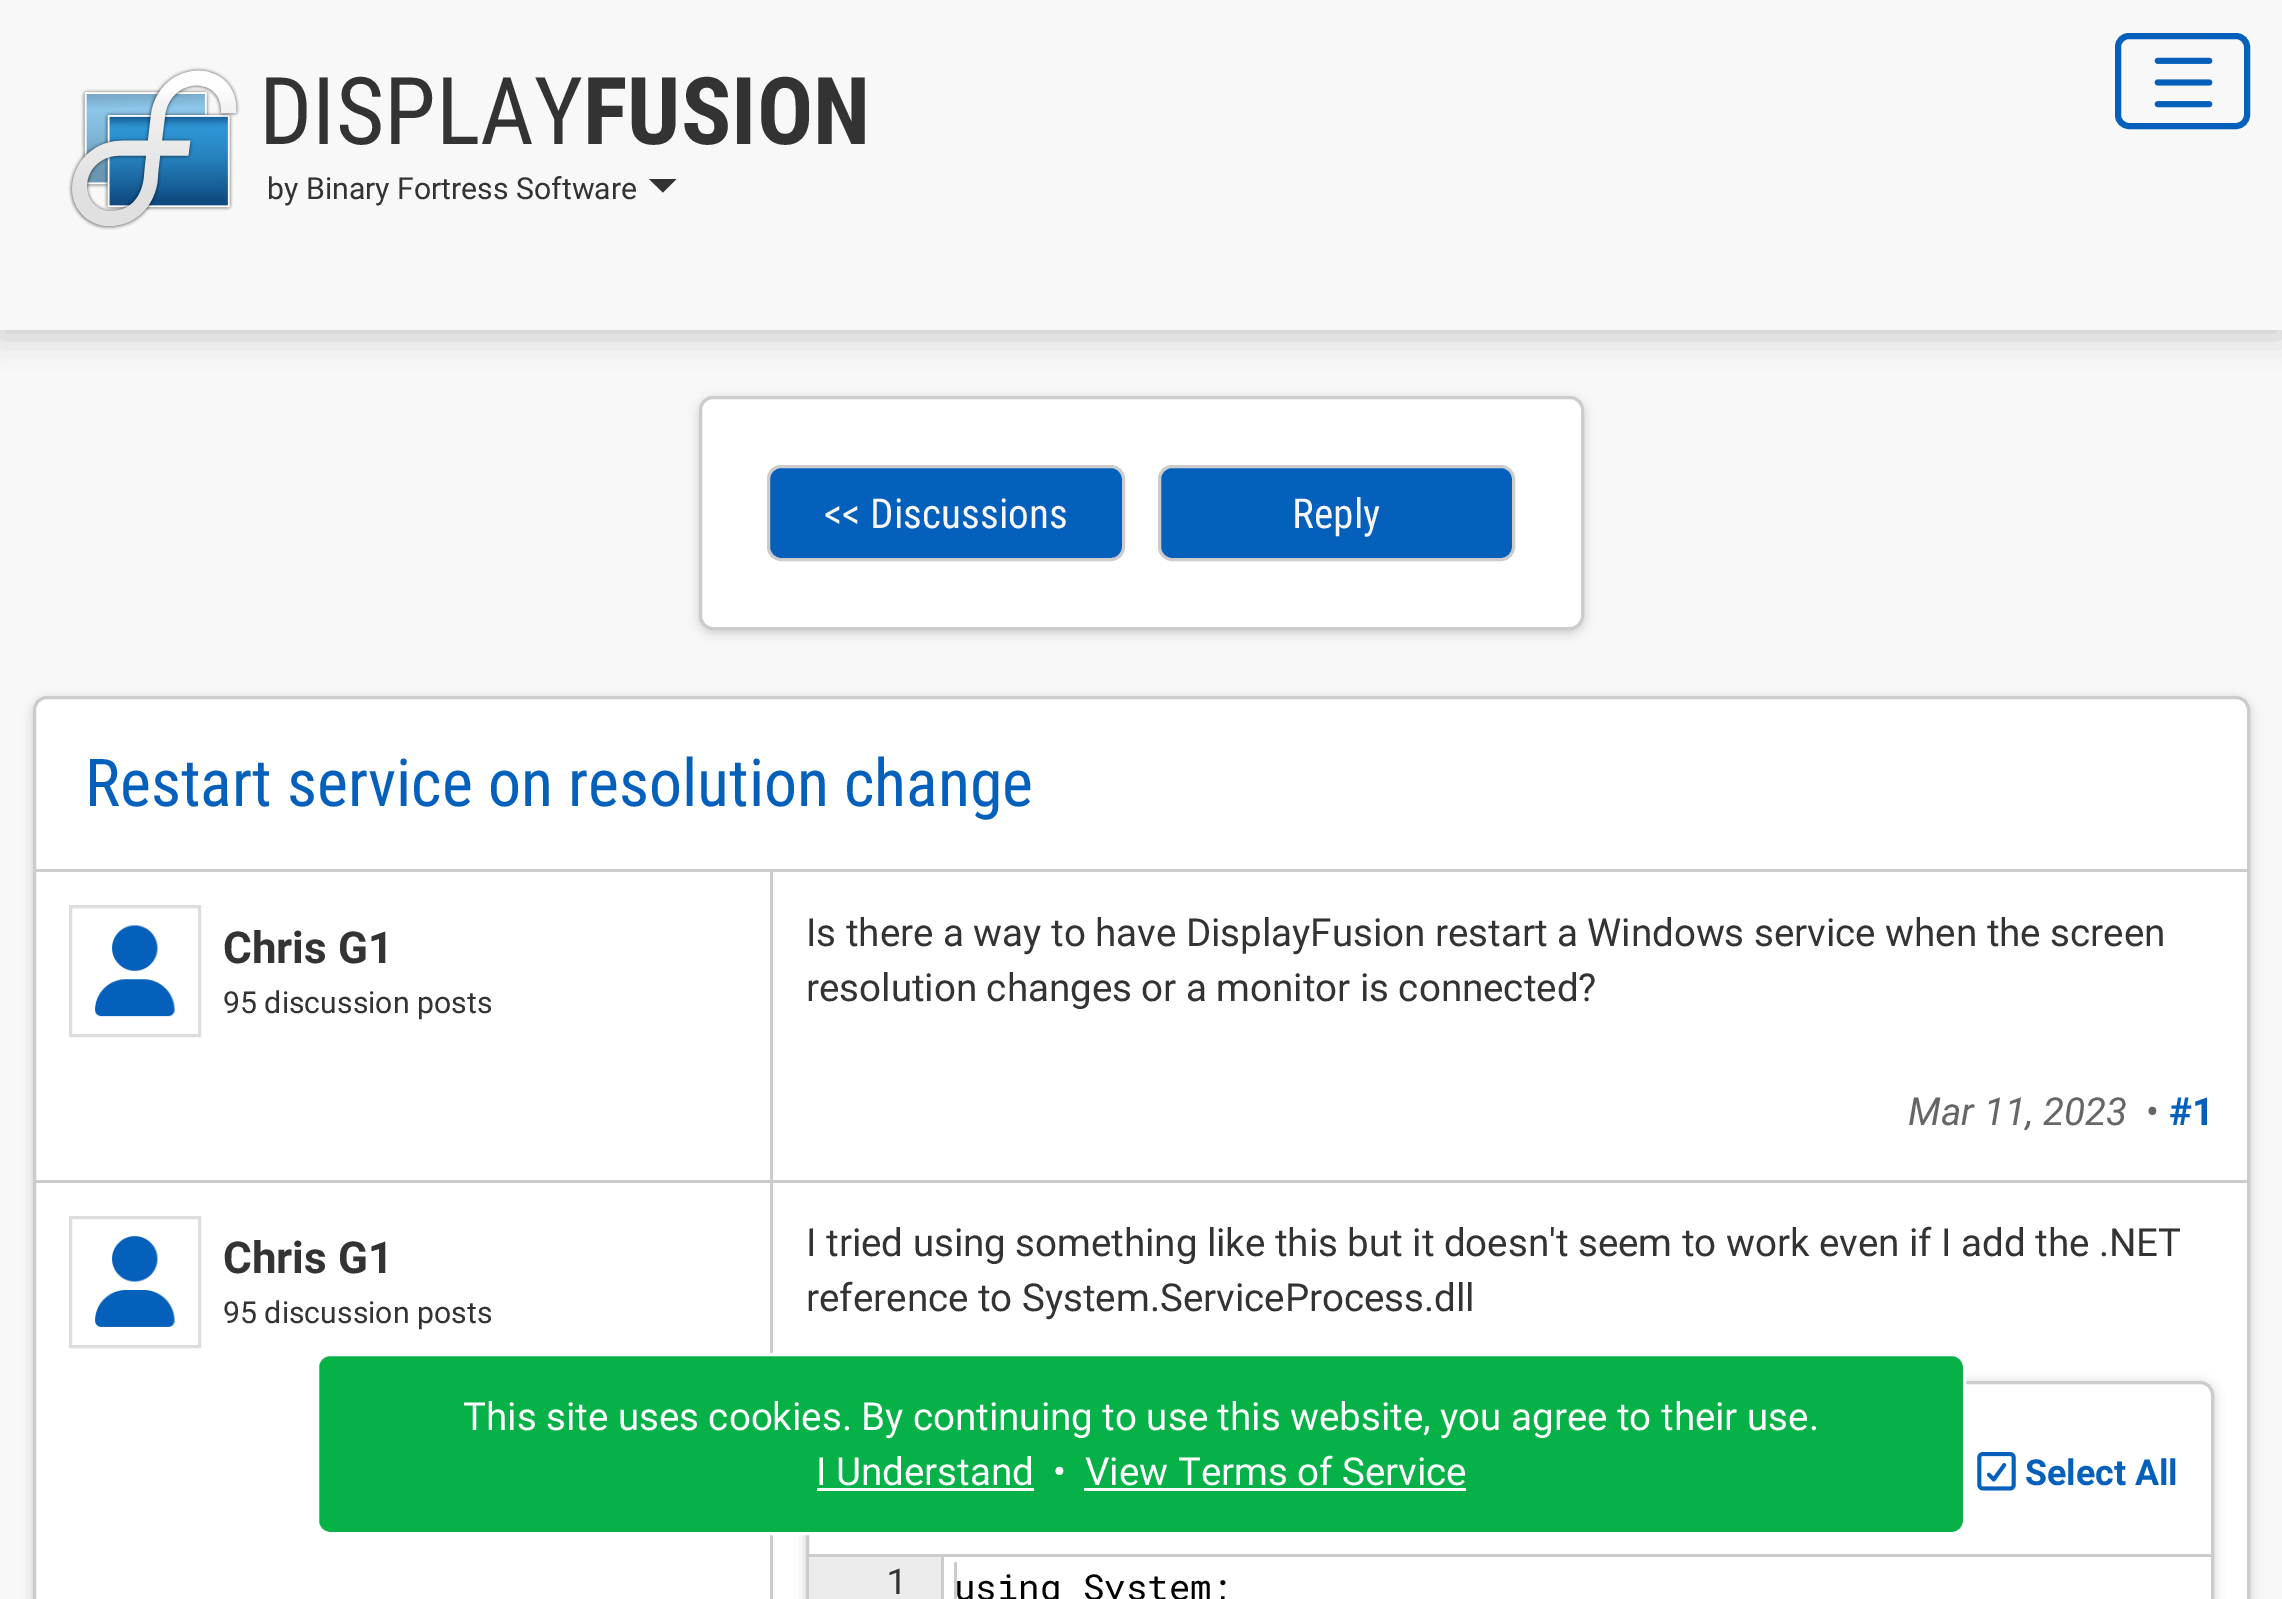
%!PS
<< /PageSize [2282 1599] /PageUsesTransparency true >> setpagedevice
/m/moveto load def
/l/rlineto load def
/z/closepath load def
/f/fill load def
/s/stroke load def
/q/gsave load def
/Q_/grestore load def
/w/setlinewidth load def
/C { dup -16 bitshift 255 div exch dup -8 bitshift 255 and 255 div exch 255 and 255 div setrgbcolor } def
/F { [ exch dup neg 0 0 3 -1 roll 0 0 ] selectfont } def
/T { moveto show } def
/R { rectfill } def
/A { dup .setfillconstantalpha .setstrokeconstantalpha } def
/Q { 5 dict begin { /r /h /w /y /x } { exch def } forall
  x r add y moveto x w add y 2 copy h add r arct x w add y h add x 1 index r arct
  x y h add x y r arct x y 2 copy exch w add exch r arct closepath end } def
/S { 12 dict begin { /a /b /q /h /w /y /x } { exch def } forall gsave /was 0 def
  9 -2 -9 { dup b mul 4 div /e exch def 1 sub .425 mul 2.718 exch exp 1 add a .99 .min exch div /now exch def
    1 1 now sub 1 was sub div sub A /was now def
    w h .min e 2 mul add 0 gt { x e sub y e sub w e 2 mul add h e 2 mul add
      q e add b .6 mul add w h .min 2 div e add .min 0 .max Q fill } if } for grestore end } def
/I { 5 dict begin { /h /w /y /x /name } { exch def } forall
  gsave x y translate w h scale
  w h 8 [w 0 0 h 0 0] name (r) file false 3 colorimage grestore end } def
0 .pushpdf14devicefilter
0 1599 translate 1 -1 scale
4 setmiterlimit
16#F8F8F8 C
0 0 2282 1599 R
q
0 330 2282 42 rectclip
16#CCCCCC C
0 8 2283 330 0 16.5 1 S
Q_
(1.rgb) 68 67 172 163 I
/RobotoCondensed-Regular 93.5 F
16#333333 C
(DISPLAY) 259 144 T
/RobotoCondensed-Bold 93.5 F
(FUSION) 583 144 T
/Roboto-Regular 30.25 F
(by Binary Fortress Software) 267 199 T
649 179 m 27.5 0 l -13.5 13.5 l z f
16#0460BA C
6 w
2118 36 129 90 11 Q s
(2.rgb) 2154 57 59 51 I
16#CCCCCC C
699 399 885 234 14 5.5 1 S
16#FFFFFF C
700.5 397.5 882 231 12.5 Q q f Q_
16#CCCCCC C
3 w
s
16#0460BA C
768.5 466.5 355 93 12.5 Q q f Q_
16#CCCCCC C
s
/RobotoCondensed-Regular 41.25 F
16#F6F6F6 C
(<< Discussions) 824 528 T
16#0460BA C
1159.5 466.5 354 93 12.5 Q q f Q_
16#CCCCCC C
s
16#F6F6F6 C
(Reply) 1292 528 T
16#CCCCCC C
33 699 2217 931 14 5.5 1 S
16#FFFFFF C
34.5 697.5 2214 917 12.5 Q q f Q_
16#CCCCCC C
s
36 869 2211 3 R
/RobotoCondensed-Regular 66 F
16#0460BA C
(Restart service on resolution change) 85 806 T
16#CCCCCC C
36 1180 2211 3 R
770 872 3 308 R
16#DDDDDD C
70.5 906.5 129 129 rectstroke
(3.rgb) 95 925 80 92 I
/Roboto-Bold 44 F
16#333333 C
(Chris G1) 223 963 T
/Roboto-Regular 30.25 F
(95 discussion posts) 223 1013 T
/Roboto-Regular 38.5 F
(Is there a way to have DisplayFusion restart a Windows service when the screen) 806 946 T
(resolution changes or a monitor is connected?) 806 1001 T
/Roboto-Italic 38.5 F
16#666666 C
(Mar 11, 2023) 1908 1125 T
/Roboto-Regular 38.5 F
(•) 2146 1125 T
/Roboto-Bold 38.5 F
16#0460BA C
(#1) 2169 1125 T
16#CCCCCC C
770 1183 3 416 R
16#DDDDDD C
70.5 1217.5 129 129 rectstroke
(4.rgb) 95 1236 80 91 I
/Roboto-Bold 44 F
16#333333 C
(Chris G1) 223 1273 T
/Roboto-Regular 30.25 F
(95 discussion posts) 223 1323 T
/Roboto-Regular 38.5 F
(I tried using something like this but it doesn't seem to work even if I add the .NET) 806 1256 T
(reference to System.ServiceProcess.dll) 806 1311 T
16#CCCCCC C
806 1383 1408 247 14 5.5 1 S
16#FFFFFF C
807.5 1382.5 1405 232 12.5 Q q f Q_
16#CCCCCC C
s
(5.rgb) 1977 1452 39 39 I
/Roboto-Bold 35.75 F
16#0460BA C
(Select All) 2025 1485 T
16#CCCCCC C
809 1554 1402 3 R
941 1557 3 42 R
16#ECECEC C
809 1557 132 42 R
/RobotoMono-Regular 35.75 F
16#333333 C
(1) 886 1594 T
16#CCCCCC C
954 1562 3 37 R
16#000000 C
(using System;) 954 1600 T
16#06B247 C
317.5 1354.5 1647 179 12.5 Q q f Q_
16#FFFFFF C
s
/Roboto-Regular 38.5 F
(This site uses cookies. By continuing to use this website, you agree to their use.) 463 1430 T
(I Understand) 816 1485 T
817 1488 217 3 R
(•) 1053 1485 T
(View Terms of Service) 1085 1485 T
1084 1488 382 3 R
.poppdf14devicefilter showpage
